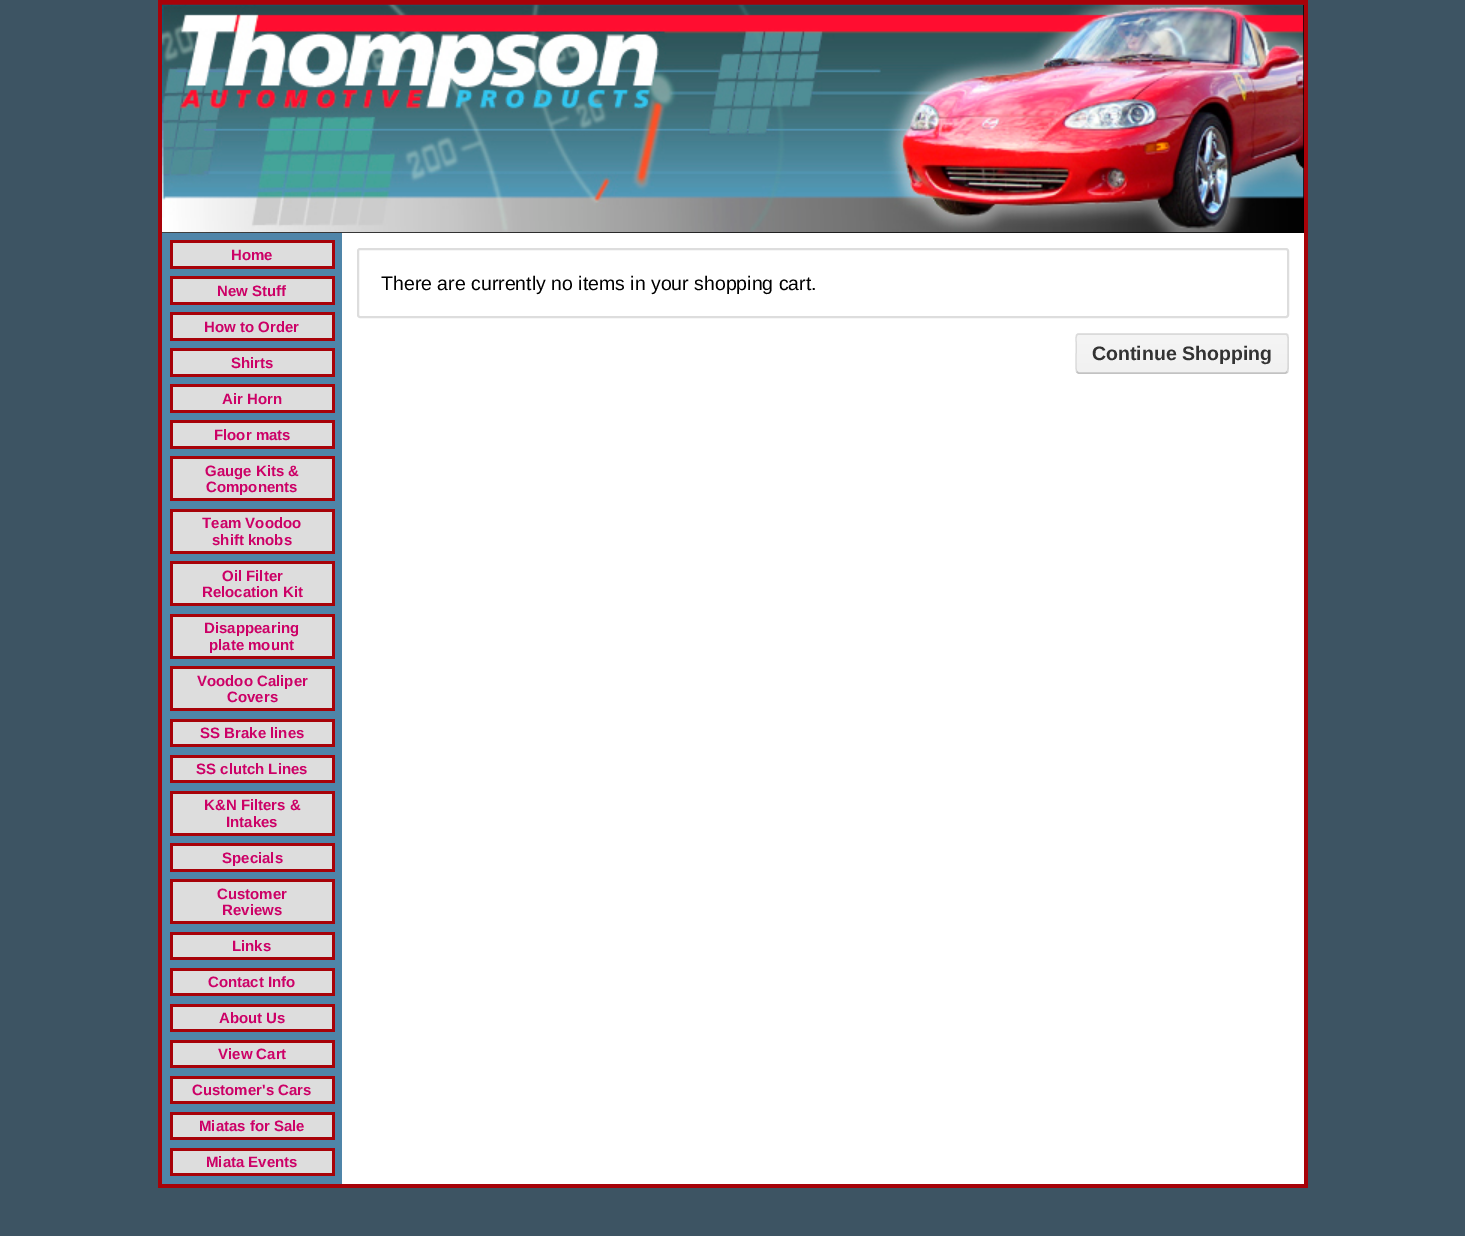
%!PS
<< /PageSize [1465 1236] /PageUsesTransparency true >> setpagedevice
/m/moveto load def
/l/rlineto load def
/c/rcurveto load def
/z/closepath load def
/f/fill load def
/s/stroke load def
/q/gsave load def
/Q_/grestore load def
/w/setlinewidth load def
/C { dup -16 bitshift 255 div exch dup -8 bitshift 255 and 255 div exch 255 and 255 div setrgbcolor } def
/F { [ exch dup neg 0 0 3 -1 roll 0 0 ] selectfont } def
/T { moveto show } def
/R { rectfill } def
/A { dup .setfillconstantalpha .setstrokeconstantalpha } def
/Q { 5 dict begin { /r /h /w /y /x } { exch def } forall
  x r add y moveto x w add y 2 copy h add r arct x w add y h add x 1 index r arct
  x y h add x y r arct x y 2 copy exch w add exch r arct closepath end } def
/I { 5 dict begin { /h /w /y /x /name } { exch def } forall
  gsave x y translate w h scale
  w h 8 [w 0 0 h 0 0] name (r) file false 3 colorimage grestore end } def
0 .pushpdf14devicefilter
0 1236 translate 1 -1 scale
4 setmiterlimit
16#3D5463 C
0 0 1465 1236 R
16#A70209 C
158 0 1150 1188 R
16#000000 C
162 5 1142 228 R
(1.rgb) 162 4 1142 229 I
16#4F85A9 C
162 233 180 951 R
16#A70209 C
170 240 165 29 R
16#DDDDDD C
173 243 159 23 R
/LiberationSans-Bold 15 F
16#CC0066 C
(Home) 231 260 T
16#A70209 C
170 276 165 29 R
16#DDDDDD C
173 279 159 23 R
16#CC0066 C
(New Stuff) 217 296 T
16#A70209 C
170 312 165 29 R
16#DDDDDD C
173 315 159 23 R
16#CC0066 C
(How to Order) 204 332 T
16#A70209 C
170 348 165 29 R
16#DDDDDD C
173 351 159 23 R
16#CC0066 C
(Shirts) 231 368 T
16#A70209 C
170 384 165 29 R
16#DDDDDD C
173 387 159 23 R
16#CC0066 C
(Air Horn) 222 404 T
16#A70209 C
170 420 165 29 R
16#DDDDDD C
173 423 159 23 R
16#CC0066 C
(Floor mats) 214 440 T
16#A70209 C
170 456 165 45 R
16#DDDDDD C
173 459 159 39 R
16#CC0066 C
(Gauge Kits &) 205 476 T
(Components) 206 492 T
16#A70209 C
170 509 165 45 R
16#DDDDDD C
173 512 159 39 R
16#CC0066 C
(Team Voodoo) 202 528 T
(shift knobs) 212 545 T
16#A70209 C
170 561 165 45 R
16#DDDDDD C
173 564 159 39 R
16#CC0066 C
(Oil Filter) 222 581 T
(Relocation Kit) 202 597 T
16#A70209 C
170 614 165 45 R
16#DDDDDD C
173 617 159 39 R
16#CC0066 C
(Disappearing) 204 633 T
(plate mount) 209 650 T
16#A70209 C
170 666 165 45 R
16#DDDDDD C
173 669 159 39 R
16#CC0066 C
(Voodoo Caliper) 197 686 T
(Covers) 227 702 T
16#A70209 C
170 719 165 28 R
16#DDDDDD C
173 722 159 22 R
16#CC0066 C
(SS Brake lines) 200 738 T
16#A70209 C
170 755 165 28 R
16#DDDDDD C
173 758 159 22 R
16#CC0066 C
(SS clutch Lines) 196 774 T
16#A70209 C
170 791 165 45 R
16#DDDDDD C
173 794 159 39 R
16#CC0066 C
(K&N Filters &) 204 810 T
(Intakes) 226 827 T
16#A70209 C
170 843 165 29 R
16#DDDDDD C
173 846 159 23 R
16#CC0066 C
(Specials) 222 863 T
16#A70209 C
170 879 165 45 R
16#DDDDDD C
173 882 159 39 R
16#CC0066 C
(Customer) 217 899 T
(Reviews) 222 915 T
16#A70209 C
170 932 165 28 R
16#DDDDDD C
173 935 159 22 R
16#CC0066 C
(Links) 232 951 T
16#A70209 C
170 968 165 28 R
16#DDDDDD C
173 971 159 22 R
16#CC0066 C
(Contact Info) 208 987 T
16#A70209 C
170 1004 165 28 R
16#DDDDDD C
173 1007 159 22 R
16#CC0066 C
(About Us) 219 1023 T
16#A70209 C
170 1040 165 28 R
16#DDDDDD C
173 1043 159 22 R
16#CC0066 C
(View Cart) 218 1059 T
16#A70209 C
170 1076 165 28 R
16#DDDDDD C
173 1079 159 22 R
16#CC0066 C
(Customer's Cars) 192 1095 T
16#A70209 C
170 1112 165 28 R
16#DDDDDD C
173 1115 159 22 R
16#CC0066 C
(Miatas for Sale) 199 1131 T
16#A70209 C
170 1148 165 28 R
16#DDDDDD C
173 1151 159 22 R
16#CC0066 C
(Miata Events) 206 1167 T
16#FFFFFF C
342 233 962 951 R
16#DDDDDD C
2 w
358 249 930 68 2 Q s
/LiberationSans-Regular 19.5 F
16#000000 C
(There are currently no items in your shopping cart.) 381 290 T
16#F3F3F3 C
1076 333 213 41 3 Q f
q
1076 333 213 41 3 Q clip newpath
q 1076 335 m 213 0 l 0 37 l -213 0 l z clip newpath
<< /ShadingType 2 /ColorSpace /DeviceRGB /Coords [1182 335 1182 372] /Extend [true true] /Function << /FunctionType 2 /Domain [0 1] /C0 [.961 .961 .961] /C1 [.945 .945 .945] /N 1 >> >> shfill Q_
Q_
16#C2C2C2 C
1.5 w
1287 372 m -1.5 1 l -207 0 l -1.5 -1 l s
0.1 A
16#000000 C
1077 372 m -2 -1.5 -1 -16 -1 -19 c 0 -11 l 0 -1.5 -1 -8 2.5 -8 c 207 0 l 3.5 0 2.5 6.5 2.5 8 c 0 11 l 0 3 1 17.5 -1 19 c s
/LiberationSans-Bold 19.5 F
1 A
16#333333 C
(Continue Shopping) 1092 360 T
.poppdf14devicefilter showpage
